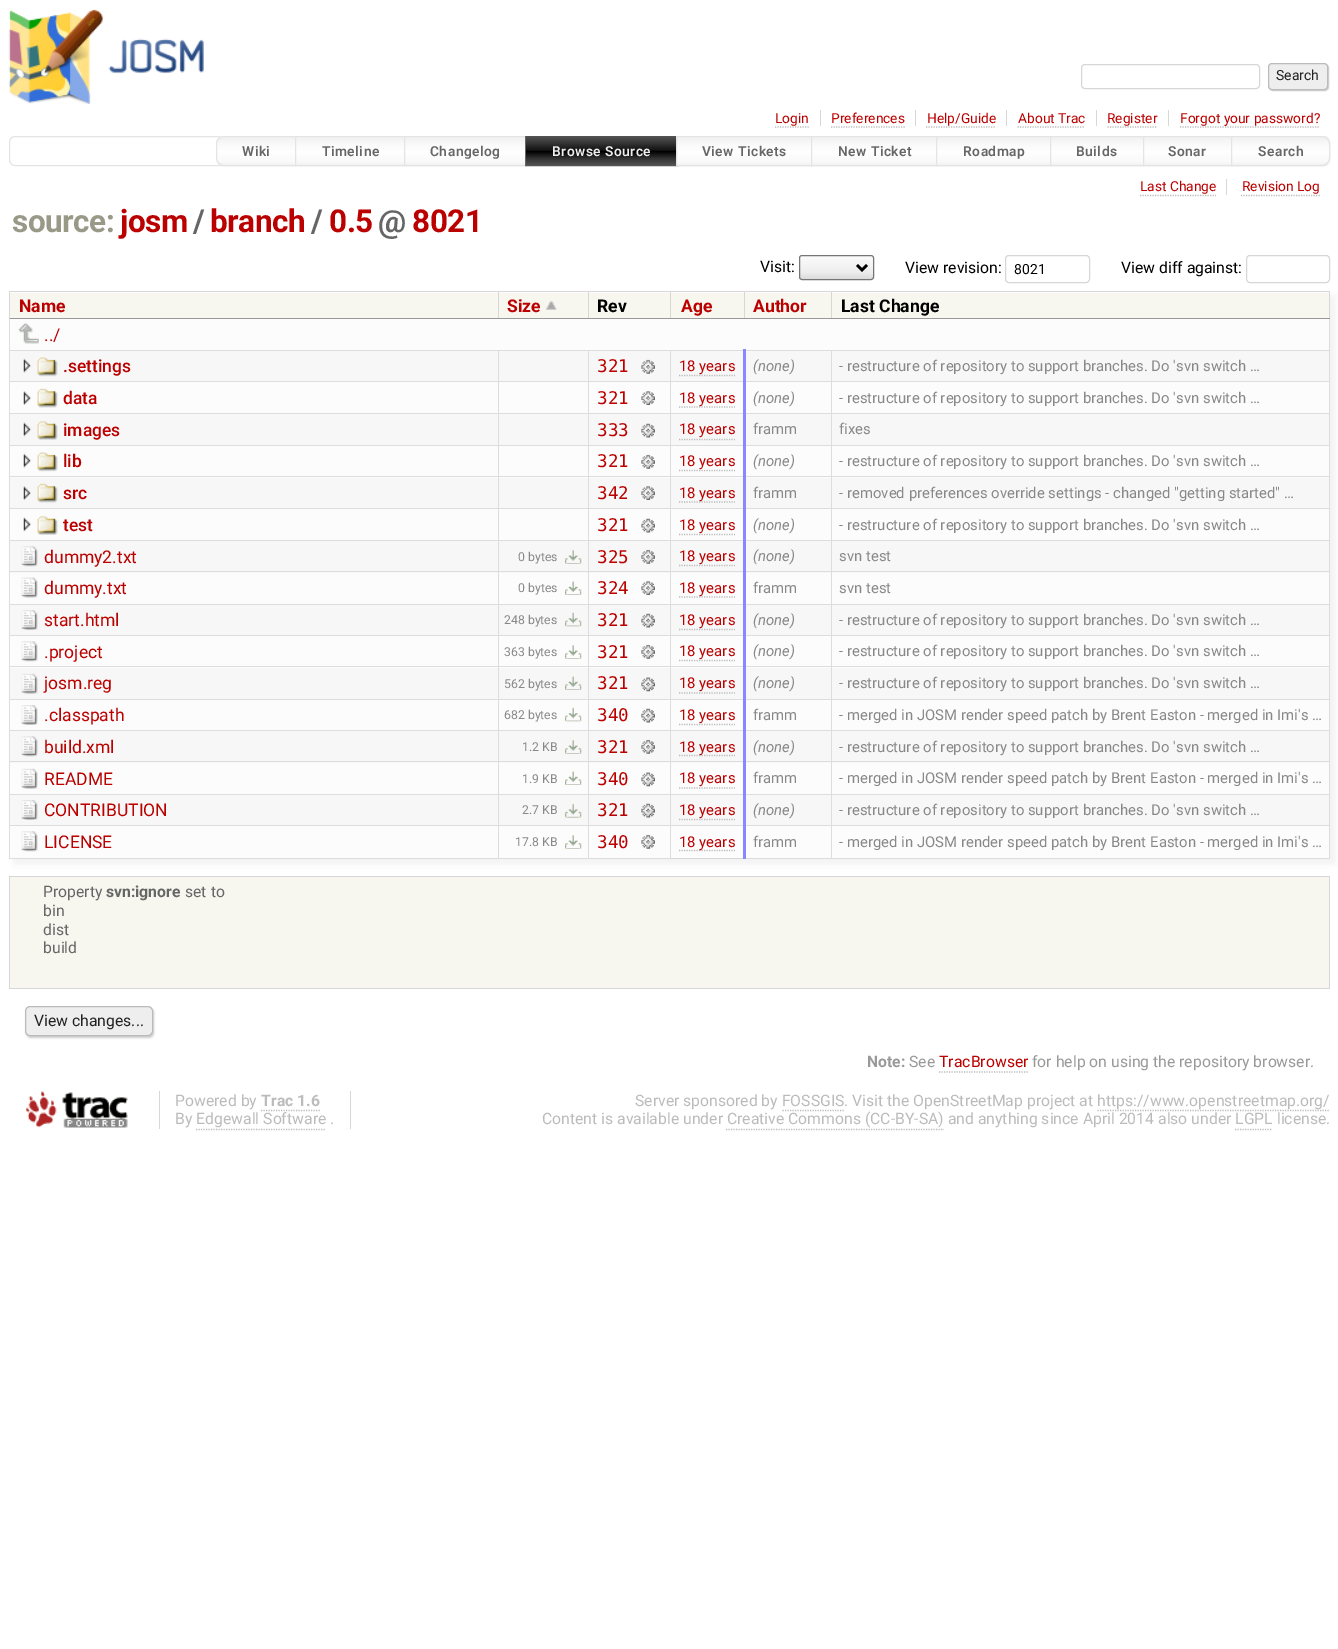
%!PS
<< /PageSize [1338 1649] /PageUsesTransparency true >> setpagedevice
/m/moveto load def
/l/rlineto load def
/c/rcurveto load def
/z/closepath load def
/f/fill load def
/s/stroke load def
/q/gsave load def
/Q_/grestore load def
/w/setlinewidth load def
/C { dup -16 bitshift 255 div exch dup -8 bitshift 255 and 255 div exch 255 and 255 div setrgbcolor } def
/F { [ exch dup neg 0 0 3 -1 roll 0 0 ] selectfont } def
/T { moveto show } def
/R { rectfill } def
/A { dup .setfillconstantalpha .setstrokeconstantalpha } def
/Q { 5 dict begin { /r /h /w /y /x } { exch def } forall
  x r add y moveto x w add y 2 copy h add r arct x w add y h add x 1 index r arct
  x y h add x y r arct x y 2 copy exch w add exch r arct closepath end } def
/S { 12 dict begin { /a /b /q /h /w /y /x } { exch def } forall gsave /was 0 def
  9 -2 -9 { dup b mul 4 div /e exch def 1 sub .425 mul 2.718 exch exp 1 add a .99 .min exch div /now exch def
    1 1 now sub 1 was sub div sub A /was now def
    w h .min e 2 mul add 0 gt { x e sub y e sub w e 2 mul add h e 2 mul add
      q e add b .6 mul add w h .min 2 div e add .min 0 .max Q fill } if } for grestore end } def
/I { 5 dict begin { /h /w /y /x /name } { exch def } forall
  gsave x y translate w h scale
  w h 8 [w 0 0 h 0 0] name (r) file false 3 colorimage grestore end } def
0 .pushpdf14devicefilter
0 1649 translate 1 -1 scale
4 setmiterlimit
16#FFFFFF C
0 0 1338 1649 R
(1.rgb) 8 9 196 95 I
16#D7D7D7 C
1081.5 64.5 178 24 3.5 Q s
16#CCCCCC C
1269 64 60 27 4 .5 1 S
16#EEEEEE C
1268.5 63.5 59 26 3.5 Q q f Q_
16#BBBBBB C
s
/Roboto-Regular 14 F
16#222222 C
(Search) 1276 80 T
16#D7D7D7 C
820 110 1 16 R
/Roboto-Regular 13.75 F
16#BB0000 C
(Login) 775 123 T
16#BBBBBB C
1.2 w
[1.25 1.25] 0 setdash
775 127 m 34 0 l s
16#D7D7D7 C
915 110 1 16 R
16#BB0000 C
(Preferences) 831 123 T
16#BBBBBB C
831 127 m 74 0 l s
16#D7D7D7 C
1006 110 1 16 R
16#BB0000 C
(Help/Guide) 927 123 T
16#BBBBBB C
926 127 m 70 0 l s
16#D7D7D7 C
1096 110 1 16 R
16#BB0000 C
(About Trac) 1018 123 T
16#BBBBBB C
1017.5 127 m 67.5 0 l s
16#D7D7D7 C
1168 110 1 16 R
16#BB0000 C
(Register) 1107 123 T
16#BBBBBB C
1107.5 127 m 50 0 l s
16#BB0000 C
(Forgot your password?) 1180 123 T
16#BBBBBB C
1180 127 m 140 0 l s
16#E4E4E4 C
1 w
[] 0 setdash
9.5 136.5 1320 29 5.5 Q s
q
224 136 m 72 0 l 0 30 l -72 0 l -4.5 0 -8 -3.5 -8 -8 c 0 -14 l 0 -4.5 3.5 -8 8 -8 c z clip newpath
q 216 136 m 80 0 l 0 2 l -80 0 l z clip newpath
<< /ShadingType 2 /ColorSpace /DeviceRGB /Coords [256 110 256 138] /Extend [true true] /Function << /FunctionType 3 /Domain [0 1] /Functions [<< /FunctionType 2 /Domain [0 1] /C0 [.949 .949 .949] /C1 [.98 .98 .98] /N 1 >> << /FunctionType 2 /Domain [0 1] /C0 [.98 .98 .98] /C1 [.996 .996 .996] /N 1 >> << /FunctionType 2 /Domain [0 1] /C0 [.996 .996 .996] /C1 [1 1 1] /N 1 >> << /FunctionType 2 /Domain [0 1] /C0 [1 1 1] /C1 [.98 .98 .98] /N 1 >> << /FunctionType 2 /Domain [0 1] /C0 [.98 .98 .98] /C1 [.949 .949 .949] /N 1 >>] /Bounds [.25 .49 .51 .85] /Encode [0 1 0 1 0 1 0 1 0 1] >> >> shfill Q_
q 216 138 m 79 0 l 0 27 l -79 0 l z clip newpath
<< /ShadingType 2 /ColorSpace /DeviceRGB /Coords [256 138 256 165] /Extend [true true] /Function << /FunctionType 3 /Domain [0 1] /Functions [<< /FunctionType 2 /Domain [0 1] /C0 [.949 .949 .949] /C1 [.98 .98 .98] /N 1 >> << /FunctionType 2 /Domain [0 1] /C0 [.98 .98 .98] /C1 [.996 .996 .996] /N 1 >> << /FunctionType 2 /Domain [0 1] /C0 [.996 .996 .996] /C1 [1 1 1] /N 1 >> << /FunctionType 2 /Domain [0 1] /C0 [1 1 1] /C1 [.98 .98 .98] /N 1 >> << /FunctionType 2 /Domain [0 1] /C0 [.98 .98 .98] /C1 [.949 .949 .949] /N 1 >>] /Bounds [.25 .49 .51 .85] /Encode [0 1 0 1 0 1 0 1 0 1] >> >> shfill Q_
Q_
224 136.5 m 71.5 0 l 0 29 l -71.5 0 l -4 0 -7.5 -3.5 -7.5 -7.5 c 0 -14 l 0 -4 3.5 -7.5 7.5 -7.5 c z s
/Roboto-SemiBold 13.75 F
16#666666 C
242 156 m .5 0 (Wiki) ashow
q 295 137 m 110 0 l 0 1 l -110 0 l z clip newpath
<< /ShadingType 2 /ColorSpace /DeviceRGB /Coords [350 110 350 138] /Extend [true true] /Function << /FunctionType 3 /Domain [0 1] /Functions [<< /FunctionType 2 /Domain [0 1] /C0 [.949 .949 .949] /C1 [.98 .98 .98] /N 1 >> << /FunctionType 2 /Domain [0 1] /C0 [.98 .98 .98] /C1 [.996 .996 .996] /N 1 >> << /FunctionType 2 /Domain [0 1] /C0 [.996 .996 .996] /C1 [1 1 1] /N 1 >> << /FunctionType 2 /Domain [0 1] /C0 [1 1 1] /C1 [.98 .98 .98] /N 1 >> << /FunctionType 2 /Domain [0 1] /C0 [.98 .98 .98] /C1 [.949 .949 .949] /N 1 >>] /Bounds [.25 .49 .51 .85] /Encode [0 1 0 1 0 1 0 1 0 1] >> >> shfill Q_
q 296 138 m 108 0 l 0 27 l -108 0 l z clip newpath
<< /ShadingType 2 /ColorSpace /DeviceRGB /Coords [350 138 350 165] /Extend [true true] /Function << /FunctionType 3 /Domain [0 1] /Functions [<< /FunctionType 2 /Domain [0 1] /C0 [.949 .949 .949] /C1 [.98 .98 .98] /N 1 >> << /FunctionType 2 /Domain [0 1] /C0 [.98 .98 .98] /C1 [.996 .996 .996] /N 1 >> << /FunctionType 2 /Domain [0 1] /C0 [.996 .996 .996] /C1 [1 1 1] /N 1 >> << /FunctionType 2 /Domain [0 1] /C0 [1 1 1] /C1 [.98 .98 .98] /N 1 >> << /FunctionType 2 /Domain [0 1] /C0 [.98 .98 .98] /C1 [.949 .949 .949] /N 1 >>] /Bounds [.25 .49 .51 .85] /Encode [0 1 0 1 0 1 0 1 0 1] >> >> shfill Q_
16#E4E4E4 C
295.5 136.5 109 29 rectstroke
16#666666 C
322 156 m .5 0 (Timeline) ashow
q 404 137 m 124 0 l 0 1 l -124 0 l z clip newpath
<< /ShadingType 2 /ColorSpace /DeviceRGB /Coords [466 110 466 138] /Extend [true true] /Function << /FunctionType 3 /Domain [0 1] /Functions [<< /FunctionType 2 /Domain [0 1] /C0 [.949 .949 .949] /C1 [.98 .98 .98] /N 1 >> << /FunctionType 2 /Domain [0 1] /C0 [.98 .98 .98] /C1 [.996 .996 .996] /N 1 >> << /FunctionType 2 /Domain [0 1] /C0 [.996 .996 .996] /C1 [1 1 1] /N 1 >> << /FunctionType 2 /Domain [0 1] /C0 [1 1 1] /C1 [.98 .98 .98] /N 1 >> << /FunctionType 2 /Domain [0 1] /C0 [.98 .98 .98] /C1 [.949 .949 .949] /N 1 >>] /Bounds [.25 .49 .51 .85] /Encode [0 1 0 1 0 1 0 1 0 1] >> >> shfill Q_
q 405 138 m 120 0 l 0 27 l -120 0 l z clip newpath
<< /ShadingType 2 /ColorSpace /DeviceRGB /Coords [466 138 466 165] /Extend [true true] /Function << /FunctionType 3 /Domain [0 1] /Functions [<< /FunctionType 2 /Domain [0 1] /C0 [.949 .949 .949] /C1 [.98 .98 .98] /N 1 >> << /FunctionType 2 /Domain [0 1] /C0 [.98 .98 .98] /C1 [.996 .996 .996] /N 1 >> << /FunctionType 2 /Domain [0 1] /C0 [.996 .996 .996] /C1 [1 1 1] /N 1 >> << /FunctionType 2 /Domain [0 1] /C0 [1 1 1] /C1 [.98 .98 .98] /N 1 >> << /FunctionType 2 /Domain [0 1] /C0 [.98 .98 .98] /C1 [.949 .949 .949] /N 1 >>] /Bounds [.25 .49 .51 .85] /Encode [0 1 0 1 0 1 0 1 0 1] >> >> shfill Q_
16#E4E4E4 C
404.5 136.5 123 29 rectstroke
16#666666 C
430 156 m .5 0 (Changelog) ashow
525.5 136.5 152 29 rectstroke
q 526 136 m 150 0 l 0 30 l -150 0 l z clip newpath
<< /ShadingType 2 /ColorSpace /DeviceRGB /Coords [601 136 601 166] /Extend [true true] /Function << /FunctionType 3 /Domain [0 1] /Functions [<< /FunctionType 2 /Domain [0 1] /C0 [.333 .333 .333] /C1 [.2 .2 .2] /N 1 >> << /FunctionType 2 /Domain [0 1] /C0 [.2 .2 .2] /C1 [.067 .067 .067] /N 1 >> << /FunctionType 2 /Domain [0 1] /C0 [.067 .067 .067] /C1 [0 0 0] /N 1 >> << /FunctionType 2 /Domain [0 1] /C0 [0 0 0] /C1 [.2 .2 .2] /N 1 >> << /FunctionType 2 /Domain [0 1] /C0 [.2 .2 .2] /C1 [.333 .333 .333] /N 1 >>] /Bounds [.25 .49 .51 .75] /Encode [0 1 0 1 0 1 0 1 0 1] >> >> shfill Q_
16#EEEEEE C
552 156 m .5 0 (Browse Source) ashow
q 676 137 m 137 0 l 0 1 l -137 0 l z clip newpath
<< /ShadingType 2 /ColorSpace /DeviceRGB /Coords [744 110 744 138] /Extend [true true] /Function << /FunctionType 3 /Domain [0 1] /Functions [<< /FunctionType 2 /Domain [0 1] /C0 [.949 .949 .949] /C1 [.98 .98 .98] /N 1 >> << /FunctionType 2 /Domain [0 1] /C0 [.98 .98 .98] /C1 [.996 .996 .996] /N 1 >> << /FunctionType 2 /Domain [0 1] /C0 [.996 .996 .996] /C1 [1 1 1] /N 1 >> << /FunctionType 2 /Domain [0 1] /C0 [1 1 1] /C1 [.98 .98 .98] /N 1 >> << /FunctionType 2 /Domain [0 1] /C0 [.98 .98 .98] /C1 [.949 .949 .949] /N 1 >>] /Bounds [.25 .49 .51 .85] /Encode [0 1 0 1 0 1 0 1 0 1] >> >> shfill Q_
q 677 138 m 134 0 l 0 27 l -134 0 l z clip newpath
<< /ShadingType 2 /ColorSpace /DeviceRGB /Coords [744 138 744 165] /Extend [true true] /Function << /FunctionType 3 /Domain [0 1] /Functions [<< /FunctionType 2 /Domain [0 1] /C0 [.949 .949 .949] /C1 [.98 .98 .98] /N 1 >> << /FunctionType 2 /Domain [0 1] /C0 [.98 .98 .98] /C1 [.996 .996 .996] /N 1 >> << /FunctionType 2 /Domain [0 1] /C0 [.996 .996 .996] /C1 [1 1 1] /N 1 >> << /FunctionType 2 /Domain [0 1] /C0 [1 1 1] /C1 [.98 .98 .98] /N 1 >> << /FunctionType 2 /Domain [0 1] /C0 [.98 .98 .98] /C1 [.949 .949 .949] /N 1 >>] /Bounds [.25 .49 .51 .85] /Encode [0 1 0 1 0 1 0 1 0 1] >> >> shfill Q_
16#E4E4E4 C
676.5 136.5 136 29 rectstroke
16#666666 C
702 156 m .5 0 (View Tickets) ashow
q 811 137 m 127 0 l 0 1 l -127 0 l z clip newpath
<< /ShadingType 2 /ColorSpace /DeviceRGB /Coords [874 110 874 138] /Extend [true true] /Function << /FunctionType 3 /Domain [0 1] /Functions [<< /FunctionType 2 /Domain [0 1] /C0 [.949 .949 .949] /C1 [.98 .98 .98] /N 1 >> << /FunctionType 2 /Domain [0 1] /C0 [.98 .98 .98] /C1 [.996 .996 .996] /N 1 >> << /FunctionType 2 /Domain [0 1] /C0 [.996 .996 .996] /C1 [1 1 1] /N 1 >> << /FunctionType 2 /Domain [0 1] /C0 [1 1 1] /C1 [.98 .98 .98] /N 1 >> << /FunctionType 2 /Domain [0 1] /C0 [.98 .98 .98] /C1 [.949 .949 .949] /N 1 >>] /Bounds [.25 .49 .51 .85] /Encode [0 1 0 1 0 1 0 1 0 1] >> >> shfill Q_
q 812 138 m 124 0 l 0 27 l -124 0 l z clip newpath
<< /ShadingType 2 /ColorSpace /DeviceRGB /Coords [874 138 874 165] /Extend [true true] /Function << /FunctionType 3 /Domain [0 1] /Functions [<< /FunctionType 2 /Domain [0 1] /C0 [.949 .949 .949] /C1 [.98 .98 .98] /N 1 >> << /FunctionType 2 /Domain [0 1] /C0 [.98 .98 .98] /C1 [.996 .996 .996] /N 1 >> << /FunctionType 2 /Domain [0 1] /C0 [.996 .996 .996] /C1 [1 1 1] /N 1 >> << /FunctionType 2 /Domain [0 1] /C0 [1 1 1] /C1 [.98 .98 .98] /N 1 >> << /FunctionType 2 /Domain [0 1] /C0 [.98 .98 .98] /C1 [.949 .949 .949] /N 1 >>] /Bounds [.25 .49 .51 .85] /Encode [0 1 0 1 0 1 0 1 0 1] >> >> shfill Q_
16#E4E4E4 C
811.5 136.5 126 29 rectstroke
16#666666 C
838 156 m .5 0 (New Ticket) ashow
q 936 137 m 115 0 l 0 1 l -115 0 l z clip newpath
<< /ShadingType 2 /ColorSpace /DeviceRGB /Coords [994 110 994 138] /Extend [true true] /Function << /FunctionType 3 /Domain [0 1] /Functions [<< /FunctionType 2 /Domain [0 1] /C0 [.949 .949 .949] /C1 [.98 .98 .98] /N 1 >> << /FunctionType 2 /Domain [0 1] /C0 [.98 .98 .98] /C1 [.996 .996 .996] /N 1 >> << /FunctionType 2 /Domain [0 1] /C0 [.996 .996 .996] /C1 [1 1 1] /N 1 >> << /FunctionType 2 /Domain [0 1] /C0 [1 1 1] /C1 [.98 .98 .98] /N 1 >> << /FunctionType 2 /Domain [0 1] /C0 [.98 .98 .98] /C1 [.949 .949 .949] /N 1 >>] /Bounds [.25 .49 .51 .85] /Encode [0 1 0 1 0 1 0 1 0 1] >> >> shfill Q_
q 937 138 m 113 0 l 0 27 l -113 0 l z clip newpath
<< /ShadingType 2 /ColorSpace /DeviceRGB /Coords [994 138 994 165] /Extend [true true] /Function << /FunctionType 3 /Domain [0 1] /Functions [<< /FunctionType 2 /Domain [0 1] /C0 [.949 .949 .949] /C1 [.98 .98 .98] /N 1 >> << /FunctionType 2 /Domain [0 1] /C0 [.98 .98 .98] /C1 [.996 .996 .996] /N 1 >> << /FunctionType 2 /Domain [0 1] /C0 [.996 .996 .996] /C1 [1 1 1] /N 1 >> << /FunctionType 2 /Domain [0 1] /C0 [1 1 1] /C1 [.98 .98 .98] /N 1 >> << /FunctionType 2 /Domain [0 1] /C0 [.98 .98 .98] /C1 [.949 .949 .949] /N 1 >>] /Bounds [.25 .49 .51 .85] /Encode [0 1 0 1 0 1 0 1 0 1] >> >> shfill Q_
16#E4E4E4 C
936.5 136.5 114 29 rectstroke
16#666666 C
963 156 m .5 0 (Roadmap) ashow
q 1050 137 m 94 0 l 0 1 l -94 0 l z clip newpath
<< /ShadingType 2 /ColorSpace /DeviceRGB /Coords [1097 110 1097 138] /Extend [true true] /Function << /FunctionType 3 /Domain [0 1] /Functions [<< /FunctionType 2 /Domain [0 1] /C0 [.949 .949 .949] /C1 [.98 .98 .98] /N 1 >> << /FunctionType 2 /Domain [0 1] /C0 [.98 .98 .98] /C1 [.996 .996 .996] /N 1 >> << /FunctionType 2 /Domain [0 1] /C0 [.996 .996 .996] /C1 [1 1 1] /N 1 >> << /FunctionType 2 /Domain [0 1] /C0 [1 1 1] /C1 [.98 .98 .98] /N 1 >> << /FunctionType 2 /Domain [0 1] /C0 [.98 .98 .98] /C1 [.949 .949 .949] /N 1 >>] /Bounds [.25 .49 .51 .85] /Encode [0 1 0 1 0 1 0 1 0 1] >> >> shfill Q_
q 1051 138 m 92 0 l 0 27 l -92 0 l z clip newpath
<< /ShadingType 2 /ColorSpace /DeviceRGB /Coords [1097 138 1097 165] /Extend [true true] /Function << /FunctionType 3 /Domain [0 1] /Functions [<< /FunctionType 2 /Domain [0 1] /C0 [.949 .949 .949] /C1 [.98 .98 .98] /N 1 >> << /FunctionType 2 /Domain [0 1] /C0 [.98 .98 .98] /C1 [.996 .996 .996] /N 1 >> << /FunctionType 2 /Domain [0 1] /C0 [.996 .996 .996] /C1 [1 1 1] /N 1 >> << /FunctionType 2 /Domain [0 1] /C0 [1 1 1] /C1 [.98 .98 .98] /N 1 >> << /FunctionType 2 /Domain [0 1] /C0 [.98 .98 .98] /C1 [.949 .949 .949] /N 1 >>] /Bounds [.25 .49 .51 .85] /Encode [0 1 0 1 0 1 0 1 0 1] >> >> shfill Q_
16#E4E4E4 C
1050.5 136.5 93 29 rectstroke
16#666666 C
1076 156 m .5 0 (Builds) ashow
q 1143 137 m 90 0 l 0 1 l -90 0 l z clip newpath
<< /ShadingType 2 /ColorSpace /DeviceRGB /Coords [1188 110 1188 138] /Extend [true true] /Function << /FunctionType 3 /Domain [0 1] /Functions [<< /FunctionType 2 /Domain [0 1] /C0 [.949 .949 .949] /C1 [.98 .98 .98] /N 1 >> << /FunctionType 2 /Domain [0 1] /C0 [.98 .98 .98] /C1 [.996 .996 .996] /N 1 >> << /FunctionType 2 /Domain [0 1] /C0 [.996 .996 .996] /C1 [1 1 1] /N 1 >> << /FunctionType 2 /Domain [0 1] /C0 [1 1 1] /C1 [.98 .98 .98] /N 1 >> << /FunctionType 2 /Domain [0 1] /C0 [.98 .98 .98] /C1 [.949 .949 .949] /N 1 >>] /Bounds [.25 .49 .51 .85] /Encode [0 1 0 1 0 1 0 1 0 1] >> >> shfill Q_
q 1144 138 m 87 0 l 0 27 l -87 0 l z clip newpath
<< /ShadingType 2 /ColorSpace /DeviceRGB /Coords [1188 138 1188 165] /Extend [true true] /Function << /FunctionType 3 /Domain [0 1] /Functions [<< /FunctionType 2 /Domain [0 1] /C0 [.949 .949 .949] /C1 [.98 .98 .98] /N 1 >> << /FunctionType 2 /Domain [0 1] /C0 [.98 .98 .98] /C1 [.996 .996 .996] /N 1 >> << /FunctionType 2 /Domain [0 1] /C0 [.996 .996 .996] /C1 [1 1 1] /N 1 >> << /FunctionType 2 /Domain [0 1] /C0 [1 1 1] /C1 [.98 .98 .98] /N 1 >> << /FunctionType 2 /Domain [0 1] /C0 [.98 .98 .98] /C1 [.949 .949 .949] /N 1 >>] /Bounds [.25 .49 .51 .85] /Encode [0 1 0 1 0 1 0 1 0 1] >> >> shfill Q_
16#E4E4E4 C
1143.5 136.5 89 29 rectstroke
16#666666 C
1168 156 m .5 0 (Sonar) ashow
q
1231 136 m 91 0 l 4.5 0 8 3.5 8 8 c 0 14 l 0 4.5 -3.5 8 -8 8 c -91 0 l z clip newpath
q 1231 136 m 99 0 l 0 2 l -99 0 l z clip newpath
<< /ShadingType 2 /ColorSpace /DeviceRGB /Coords [1281 110 1281 138] /Extend [true true] /Function << /FunctionType 3 /Domain [0 1] /Functions [<< /FunctionType 2 /Domain [0 1] /C0 [.949 .949 .949] /C1 [.98 .98 .98] /N 1 >> << /FunctionType 2 /Domain [0 1] /C0 [.98 .98 .98] /C1 [.996 .996 .996] /N 1 >> << /FunctionType 2 /Domain [0 1] /C0 [.996 .996 .996] /C1 [1 1 1] /N 1 >> << /FunctionType 2 /Domain [0 1] /C0 [1 1 1] /C1 [.98 .98 .98] /N 1 >> << /FunctionType 2 /Domain [0 1] /C0 [.98 .98 .98] /C1 [.949 .949 .949] /N 1 >>] /Bounds [.25 .49 .51 .85] /Encode [0 1 0 1 0 1 0 1 0 1] >> >> shfill Q_
q 1232 138 m 98 0 l 0 27 l -98 0 l z clip newpath
<< /ShadingType 2 /ColorSpace /DeviceRGB /Coords [1281 138 1281 165] /Extend [true true] /Function << /FunctionType 3 /Domain [0 1] /Functions [<< /FunctionType 2 /Domain [0 1] /C0 [.949 .949 .949] /C1 [.98 .98 .98] /N 1 >> << /FunctionType 2 /Domain [0 1] /C0 [.98 .98 .98] /C1 [.996 .996 .996] /N 1 >> << /FunctionType 2 /Domain [0 1] /C0 [.996 .996 .996] /C1 [1 1 1] /N 1 >> << /FunctionType 2 /Domain [0 1] /C0 [1 1 1] /C1 [.98 .98 .98] /N 1 >> << /FunctionType 2 /Domain [0 1] /C0 [.98 .98 .98] /C1 [.949 .949 .949] /N 1 >>] /Bounds [.25 .49 .51 .85] /Encode [0 1 0 1 0 1 0 1 0 1] >> >> shfill Q_
Q_
16#E4E4E4 C
1231.5 136.5 m 90.5 0 l 4 0 7.5 3.5 7.5 7.5 c 0 14 l 0 4 -3.5 7.5 -7.5 7.5 c -90.5 0 l z s
16#666666 C
1258 156 m .5 0 (Search) ashow
16#D7D7D7 C
1226 179 1 16 R
/Roboto-Regular 13.75 F
16#BB0000 C
(Last Change) 1140 191 T
16#BBBBBB C
1.2 w
[1.25 1.25] 0 setdash
1140 195.5 m 76 0 l s
16#BB0000 C
(Revision Log) 1242 191 T
16#BBBBBB C
1241 195.5 m 79 0 l s
/Roboto-Bold 31.5 F
16#999988 C
12 232 m -.5 0 (source:) ashow
16#BB0000 C
120 232 m -.5 0 (josm) ashow
16#666666 C
193 232 m -.5 0 (/) ashow
16#BB0000 C
210 232 m -.5 0 (branch) ashow
16#666666 C
311 232 m -.5 0 (/) ashow
16#BB0000 C
329 232 m -.5 0 (0.5) ashow
16#666666 C
378 232 m -.5 0 (@) ashow
16#BB0000 C
412 232 m -.5 0 (8021) ashow
/Roboto-Regular 15.75 F
16#000000 C
(Visit:) 760 272 T
q
799 255 75 25 3 Q clip newpath
q 799 256 m 75 0 l 0 23 l -75 0 l z clip newpath
<< /ShadingType 2 /ColorSpace /DeviceRGB /Coords [836 279 836 256] /Extend [true true] /Function << /FunctionType 3 /Domain [0 1] /Functions [<< /FunctionType 2 /Domain [0 1] /C0 [.859 .859 .859] /C1 [.933 .933 .933] /N 1 >> << /FunctionType 2 /Domain [0 1] /C0 [.933 .933 .933] /C1 [.984 .984 .984] /N 1 >>] /Bounds [.3] /Encode [0 1 0 1] >> >> shfill Q_
Q_
16#767676 C
1 w
[] 0 setdash
799.5 255.5 74 24 2.5 Q s
16#000000 C
2.5 w
857 265 m 5 5 l 5 -5 l s
(View revision:) 905 273 T
16#D7D7D7 C
1 w
1005.5 255.5 84 27 3.5 Q s
/Roboto-Regular 14 F
16#000000 C
(8021) 1014 274 T
/Roboto-Regular 15.75 F
(View diff against:) 1121 273 T
16#D7D7D7 C
1246.5 255.5 83 27 3.5 Q s
16#F2F2F2 C
14 296 1321 568 0 3.5 1 S
16#D7D7D7 C
671 858 72 1 R
16#F7F7F0 C
10 293 1319 25 R
16#D7D7D7 C
831 291 499 1 R
16#DDDDDD C
9 350 1321 1 R
9 381 1321 1 R
9 413 1321 1 R
9 445 1321 1 R
16#FCFCFC C
13 446 1316 32 R
16#DDDDDD C
9 476 1321 1 R
9 508 1321 1 R
9 540 1321 1 R
16#F7F7F7 C
10 541 1319 32 R
16#DDDDDD C
9 571 1321 1 R
9 604 1321 1 R
9 635 1321 1 R
16#FCFCFC C
13 636 1316 32 R
16#DDDDDD C
9 666 1321 1 R
9 699 1321 1 R
9 730 1321 1 R
16#F7F7F7 C
10 731 1319 32 R
16#DDDDDD C
9 761 1321 1 R
9 794 1321 1 R
9 825 1321 1 R
1329 318 1 541 R
16#D7D7D7 C
1329 291 1 28 R
16#999999 C
831 318 499 1 R
16#D7D7D7 C
831 291 1 28 R
744 291 89 1 R
16#999999 C
744 318 89 1 R
16#D7D7D7 C
744 291 1 28 R
670 291 75 1 R
16#999999 C
670 318 75 1 R
16#D7D7D7 C
670 291 1 28 R
588 291 83 1 R
16#999999 C
588 318 83 1 R
16#D7D7D7 C
588 291 1 28 R
498 291 91 1 R
16#999999 C
498 318 91 1 R
16#D7D7D7 C
498 291 1 28 R
9 291 490 1 R
16#F7F7F7 C
10 351 1319 30 R
16#FCFCFC C
13 382 1316 31 R
16#F7F7F7 C
10 414 1319 31 R
10 478 1319 30 R
16#FCFCFC C
13 509 1316 31 R
13 573 1316 31 R
16#F7F7F7 C
10 605 1319 30 R
10 668 1319 31 R
16#FCFCFC C
13 700 1316 30 R
13 763 1316 31 R
16#F7F7F7 C
10 795 1319 30 R
16#FCFCFC C
13 826 1316 32 R
16#DDDDDD C
670 350 1 509 R
588 858 83 1 R
588 350 1 509 R
498 858 91 1 R
498 350 1 509 R
9 858 490 1 R
9 318 1 541 R
16#999999 C
9 318 490 1 R
16#D7D7D7 C
9 291 1 28 R
/Roboto-Bold 17.5 F
16#BB0000 C
(Name) 19 312 T
(Size) 507 312 T
(2.rgb) 546 301 11 9 I
16#000000 C
(Rev) 597 312 T
16#BB0000 C
(Age) 681 312 T
(Author) 753 312 T
16#000000 C
(Last Change) 841 312 T
16#FCFCFC C
13 319 1316 31 R
(3.rgb) 18 323 21 21 I
/Roboto-Regular 17.5 F
16#BB0000 C
(../) 44 341 T
(4.rgb) 23 358 9 15 I
(5.rgb) 37 357 21 20 I
/Roboto-Medium 17.5 F
(.settings) 63 372 T
/DejaVuSansMono-Regular 17.5 F
(321) 597 372 T
(6.rgb) 641 359 14 15 I
16#BBBBBB C
1.2 w
[1.25 1.25] 0 setdash
679 375.5 m 56 0 l s
/Roboto-Regular 14.9 F
16#BB0000 C
(18 years) 679 371 T
/Roboto-Italic 14.9 F
16#888888 C
(\(none\)) 753 371 T
/Roboto-Regular 14.9 F
(- restructure of repository to support branches. Do 'svn switch …) 839 371 T
(7.rgb) 23 391 9 14 I
(8.rgb) 37 388 21 20 I
/Roboto-Medium 17.5 F
16#BB0000 C
(data) 63 404 T
/DejaVuSansMono-Regular 17.5 F
(321) 597 404 T
(9.rgb) 641 391 14 14 I
16#DDDDDD C
831 858 499 1 R
831 350 1 509 R
744 858 89 1 R
16#8888FE C
743 825 3 34 R
16#8888FF C
743 793 3 35 R
16#8888FE C
743 761 3 34 R
16#8888FF C
743 730 3 34 R
16#8888FE C
743 698 3 35 R
16#8888FF C
743 603 3 97 R
16#8888FE C
743 539 3 66 R
16#8888FF C
743 508 3 33 R
16#8988FD C
743 476 3 34 R
16#8888FF C
743 444 3 35 R
16#8888FE C
743 413 3 33 R
16#8888FF C
743 349 3 66 R
16#BBBBBB C
679 407 m 56 0 l s
/Roboto-Regular 14.9 F
16#BB0000 C
(18 years) 679 403 T
/Roboto-Italic 14.9 F
16#888888 C
(\(none\)) 753 403 T
/Roboto-Regular 14.9 F
(- restructure of repository to support branches. Do 'svn switch …) 839 403 T
(10.rgb) 23 422 9 15 I
(11.rgb) 37 421 21 19 I
/Roboto-Medium 17.5 F
16#BB0000 C
(images) 63 436 T
/DejaVuSansMono-Regular 17.5 F
(333) 597 436 T
(12.rgb) 641 423 14 15 I
/Roboto-Regular 14.9 F
(18 years) 679 434 T
16#BBBBBB C
679 439.5 m 56 0 l s
16#888888 C
(framm) 753 434 T
(fixes) 839 434 T
(13.rgb) 23 453 9 15 I
(14.rgb) 37 452 21 20 I
/Roboto-Medium 17.5 F
16#BB0000 C
(lib) 63 467 T
/DejaVuSansMono-Regular 17.5 F
(321) 597 467 T
(15.rgb) 641 454 14 15 I
16#BBBBBB C
679 470.5 m 56 0 l s
/Roboto-Regular 14.9 F
16#BB0000 C
(18 years) 679 466 T
/Roboto-Italic 14.9 F
16#888888 C
(\(none\)) 753 466 T
/Roboto-Regular 14.9 F
(- restructure of repository to support branches. Do 'svn switch …) 839 466 T
(16.rgb) 23 486 8 14 I
(17.rgb) 37 483 21 20 I
/Roboto-Medium 17.5 F
16#BB0000 C
(src) 63 499 T
/DejaVuSansMono-Regular 17.5 F
(342) 597 499 T
(18.rgb) 641 486 14 14 I
16#BBBBBB C
679 502 m 56 0 l s
/Roboto-Regular 14.9 F
16#BB0000 C
(18 years) 679 498 T
16#888888 C
(framm) 753 498 T
(- removed preferences override settings - changed "getting started" …) 839 498 T
(19.rgb) 23 517 9 15 I
(20.rgb) 37 516 21 19 I
/Roboto-Medium 17.5 F
16#BB0000 C
(test) 63 531 T
/DejaVuSansMono-Regular 17.5 F
(321) 597 531 T
(21.rgb) 641 518 14 15 I
16#BBBBBB C
679 534.5 m 56 0 l s
/Roboto-Regular 14.9 F
16#BB0000 C
(18 years) 679 530 T
/Roboto-Italic 14.9 F
16#888888 C
(\(none\)) 753 530 T
/Roboto-Regular 14.9 F
(- restructure of repository to support branches. Do 'svn switch …) 839 530 T
(22.rgb) 21 546 17 21 I
/Roboto-Regular 17.5 F
16#BB0000 C
(dummy2.txt) 44 563 T
/Roboto-Regular 12.25 F
16#888888 C
(0 bytes) 518 561 T
(23.rgb) 565 550 17 14 I
/DejaVuSansMono-Regular 17.5 F
16#BB0000 C
(325) 597 563 T
(6.rgb) 641 549 14 15 I
16#BBBBBB C
679 565.5 m 56 0 l s
/Roboto-Regular 14.9 F
16#BB0000 C
(18 years) 679 561 T
/Roboto-Italic 14.9 F
16#888888 C
(\(none\)) 753 561 T
/Roboto-Regular 14.9 F
(svn test) 839 561 T
(24.rgb) 21 577 17 21 I
/Roboto-Regular 17.5 F
16#BB0000 C
(dummy.txt) 44 594 T
/Roboto-Regular 12.25 F
16#888888 C
(0 bytes) 518 592 T
(25.rgb) 565 581 17 14 I
/DejaVuSansMono-Regular 17.5 F
16#BB0000 C
(324) 597 594 T
(26.rgb) 641 581 14 14 I
16#BBBBBB C
679 597 m 56 0 l s
/Roboto-Regular 14.9 F
16#BB0000 C
(18 years) 679 593 T
16#888888 C
(framm) 753 593 T
(svn test) 839 593 T
(27.rgb) 21 610 17 20 I
/Roboto-Regular 17.5 F
16#BB0000 C
(start.html) 44 626 T
/Roboto-Regular 12.25 F
16#888888 C
(248 bytes) 504 624 T
(28.rgb) 565 612 17 15 I
/DejaVuSansMono-Regular 17.5 F
16#BB0000 C
(321) 597 626 T
(12.rgb) 641 613 14 15 I
16#BBBBBB C
679 629.5 m 56 0 l s
/Roboto-Regular 14.9 F
16#BB0000 C
(18 years) 679 625 T
/Roboto-Italic 14.9 F
16#888888 C
(\(none\)) 753 625 T
/Roboto-Regular 14.9 F
(- restructure of repository to support branches. Do 'svn switch …) 839 625 T
(29.rgb) 21 641 17 21 I
/Roboto-Regular 17.5 F
16#BB0000 C
(.project) 44 658 T
/Roboto-Regular 12.25 F
16#888888 C
(363 bytes) 504 656 T
(30.rgb) 565 645 17 14 I
/DejaVuSansMono-Regular 17.5 F
16#BB0000 C
(321) 597 658 T
(15.rgb) 641 644 14 15 I
16#BBBBBB C
679 660.5 m 56 0 l s
/Roboto-Regular 14.9 F
16#BB0000 C
(18 years) 679 656 T
/Roboto-Italic 14.9 F
16#888888 C
(\(none\)) 753 656 T
/Roboto-Regular 14.9 F
(- restructure of repository to support branches. Do 'svn switch …) 839 656 T
(31.rgb) 21 673 17 21 I
/Roboto-Regular 17.5 F
16#BB0000 C
(josm.reg) 44 689 T
/Roboto-Regular 12.25 F
16#888888 C
(562 bytes) 504 688 T
(32.rgb) 565 676 17 14 I
/DejaVuSansMono-Regular 17.5 F
16#BB0000 C
(321) 597 689 T
(33.rgb) 641 677 14 15 I
/Roboto-Regular 14.9 F
(18 years) 679 688 T
16#BBBBBB C
679 693 m 56 0 l s
/Roboto-Italic 14.9 F
16#888888 C
(\(none\)) 753 688 T
/Roboto-Regular 14.9 F
(- restructure of repository to support branches. Do 'svn switch …) 839 688 T
(34.rgb) 21 705 17 20 I
/Roboto-Regular 17.5 F
16#BB0000 C
(.classpath) 44 721 T
/Roboto-Regular 12.25 F
16#888888 C
(682 bytes) 504 719 T
(35.rgb) 565 707 17 15 I
/DejaVuSansMono-Regular 17.5 F
16#BB0000 C
(340) 597 721 T
(21.rgb) 641 708 14 15 I
16#BBBBBB C
679 724.5 m 56 0 l s
/Roboto-Regular 14.9 F
16#BB0000 C
(18 years) 679 720 T
16#888888 C
(framm) 753 720 T
(- merged in JOSM render speed patch by Brent Easton - merged in Imi's …) 839 720 T
(22.rgb) 21 736 17 21 I
/Roboto-Regular 17.5 F
16#BB0000 C
(build.xml) 44 753 T
/Roboto-Regular 12.25 F
16#888888 C
(1.2 KB) 522 751 T
(23.rgb) 565 740 17 14 I
/DejaVuSansMono-Regular 17.5 F
16#BB0000 C
(321) 597 753 T
(6.rgb) 641 739 14 15 I
16#BBBBBB C
679 755.5 m 56 0 l s
/Roboto-Regular 14.9 F
16#BB0000 C
(18 years) 679 752 T
/Roboto-Italic 14.9 F
16#888888 C
(\(none\)) 753 752 T
/Roboto-Regular 14.9 F
(- restructure of repository to support branches. Do 'svn switch …) 839 752 T
(36.rgb) 21 768 17 21 I
/Roboto-Regular 17.5 F
16#BB0000 C
(README) 44 785 T
/Roboto-Regular 12.25 F
16#888888 C
(1.9 KB) 522 783 T
(37.rgb) 565 771 17 14 I
/DejaVuSansMono-Regular 17.5 F
16#BB0000 C
(340) 597 785 T
(38.rgb) 641 772 14 15 I
/Roboto-Regular 14.9 F
(18 years) 679 783 T
16#BBBBBB C
679 788 m 56 0 l s
16#888888 C
(framm) 753 783 T
(- merged in JOSM render speed patch by Brent Easton - merged in Imi's …) 839 783 T
(27.rgb) 21 800 17 20 I
/Roboto-Regular 17.5 F
16#BB0000 C
(CONTRIBUTION) 44 816 T
/Roboto-Regular 12.25 F
16#888888 C
(2.7 KB) 522 814 T
(39.rgb) 565 803 17 15 I
/DejaVuSansMono-Regular 17.5 F
16#BB0000 C
(321) 597 816 T
(12.rgb) 641 803 14 15 I
16#BBBBBB C
679 819.5 m 56 0 l s
/Roboto-Regular 14.9 F
16#BB0000 C
(18 years) 679 815 T
/Roboto-Italic 14.9 F
16#888888 C
(\(none\)) 753 815 T
/Roboto-Regular 14.9 F
(- restructure of repository to support branches. Do 'svn switch …) 839 815 T
(29.rgb) 21 831 17 21 I
/Roboto-Regular 17.5 F
16#BB0000 C
(LICENSE) 44 848 T
/Roboto-Regular 12.25 F
16#888888 C
(17.8 KB) 515 846 T
(30.rgb) 565 835 17 14 I
/DejaVuSansMono-Regular 17.5 F
16#BB0000 C
(340) 597 848 T
(15.rgb) 641 834 14 15 I
16#BBBBBB C
679 850.5 m 56 0 l s
/Roboto-Regular 14.9 F
16#BB0000 C
(18 years) 679 847 T
16#888888 C
(framm) 753 847 T
(- merged in JOSM render speed patch by Brent Easton - merged in Imi's …) 839 847 T
16#F7F7F0 C
10 877 1319 111 R
16#D7D7D7 C
9 876 1321 1 R
1329 876 1 113 R
9 988 1321 1 R
9 876 1 113 R
/Roboto-Regular 15.75 F
16#666666 C
(Property) 43 897 T
/Roboto-Bold 15.75 F
(svn:ignore) 106 897 T
/Roboto-Regular 15.75 F
(set to) 185 897 T
(bin) 43 916 T
(dist) 43 935 T
(build) 43 953 T
16#CCCCCC C
26 1008 128 30 5 1 1 S
16#EEEEEE C
25.5 1006.5 127 29 4.5 Q q f Q_
16#BBBBBB C
1 w
[] 0 setdash
s
16#222222 C
(View changes...) 34 1026 T
/Roboto-Bold 15.75 F
16#999999 C
(Note:) 867 1067 T
/Roboto-Regular 15.75 F
(See) 909 1067 T
16#BB0000 C
(TracBrowser) 939 1067 T
16#BBBBBB C
1.2 w
[1.25 1.25] 0 setdash
939 1072 m 90 0 l s
16#999999 C
(for help on using the repository browser.) 1032 1067 T
(40.rgb) 26 1091 102 37 I
16#D7D7D7 C
350 1091 1 38 R
159 1091 1 38 R
16#BBBBBB C
(Powered by) 175 1106 T
/Roboto-Bold 15.75 F
(Trac 1.6) 261 1106 T
261 1110.5 m 59 0 l s
/Roboto-Regular 15.75 F
(By Edgewall Software .) 175 1124 T
196 1129.5 m 130 0 l s
(Server sponsored by FOSSGIS. Visit the OpenStreetMap project at) 635 1106 T
1097.5 1110.5 m 232.5 0 l s
(https://www.openstreetmap.org/) 1097 1106 T
782.5 1110.5 m 62.5 0 l s
(Content is available under Creative Commons \(CC-BY-SA\) and anything since April 2014 also under LGPL license.) 542 1124 T
726 1129.5 m 218 0 l s
1235 1129.5 m 37.5 0 l s
.poppdf14devicefilter showpage
